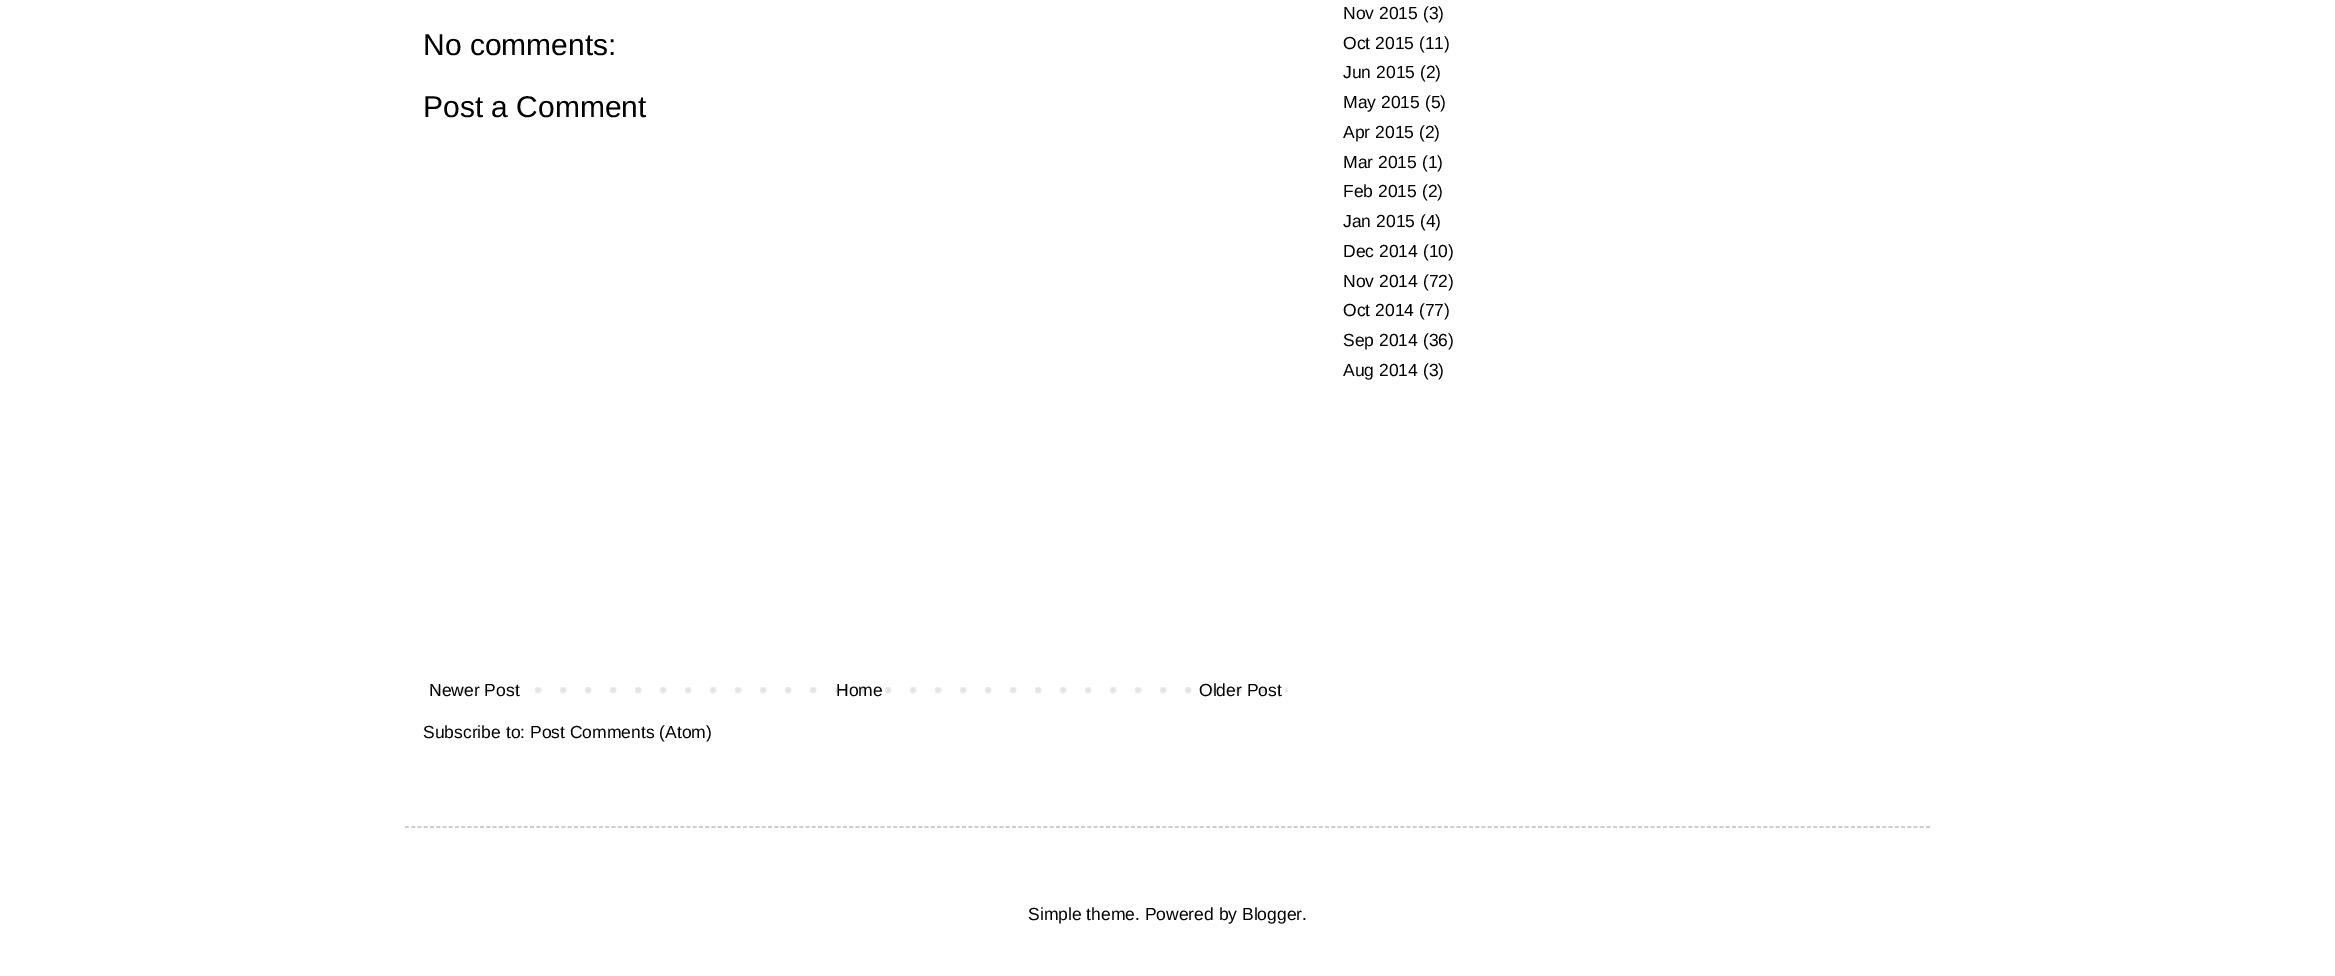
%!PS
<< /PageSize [2335 976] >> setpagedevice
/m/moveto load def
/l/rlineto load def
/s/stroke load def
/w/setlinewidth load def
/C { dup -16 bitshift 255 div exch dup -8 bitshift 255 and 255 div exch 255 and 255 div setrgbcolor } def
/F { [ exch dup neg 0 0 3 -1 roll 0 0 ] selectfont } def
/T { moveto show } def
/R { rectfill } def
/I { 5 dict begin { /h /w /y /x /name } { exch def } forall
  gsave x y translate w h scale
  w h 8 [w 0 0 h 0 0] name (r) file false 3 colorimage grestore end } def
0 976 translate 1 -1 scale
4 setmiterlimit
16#FFFFFF C
0 0 2335 976 R
/LiberationSans-Regular 30 F
16#000000 C
(No comments:) 423 55 T
(Post a Comment) 423 117 T
(1.rgb) 435 687 853 7 I
/LiberationSans-Regular 17.5 F
(Newer Post) 429 696 T
(Home) 836 696 T
(Older Post) 1199 696 T
(Subscribe to: Post Comments \(Atom\)) 423 738 T
(Nov 2015 \(3\)) 1343 19 T
(Oct 2015 \(11\)) 1343 49 T
(Jun 2015 \(2\)) 1343 78 T
(May 2015 \(5\)) 1343 108 T
(Apr 2015 \(2\)) 1343 138 T
(Mar 2015 \(1\)) 1343 168 T
(Feb 2015 \(2\)) 1343 197 T
(Jan 2015 \(4\)) 1343 227 T
(Dec 2014 \(10\)) 1343 257 T
(Nov 2014 \(72\)) 1343 287 T
(Oct 2014 \(77\)) 1343 316 T
(Sep 2014 \(36\)) 1343 346 T
(Aug 2014 \(3\)) 1343 376 T
16#BBBBBB C
1.2 w
[3.75 2.51] 0 setdash
405 827 m 1525 0 l s
16#000000 C
(Simple theme. Powered by Blogger.) 1028 920 T
showpage
